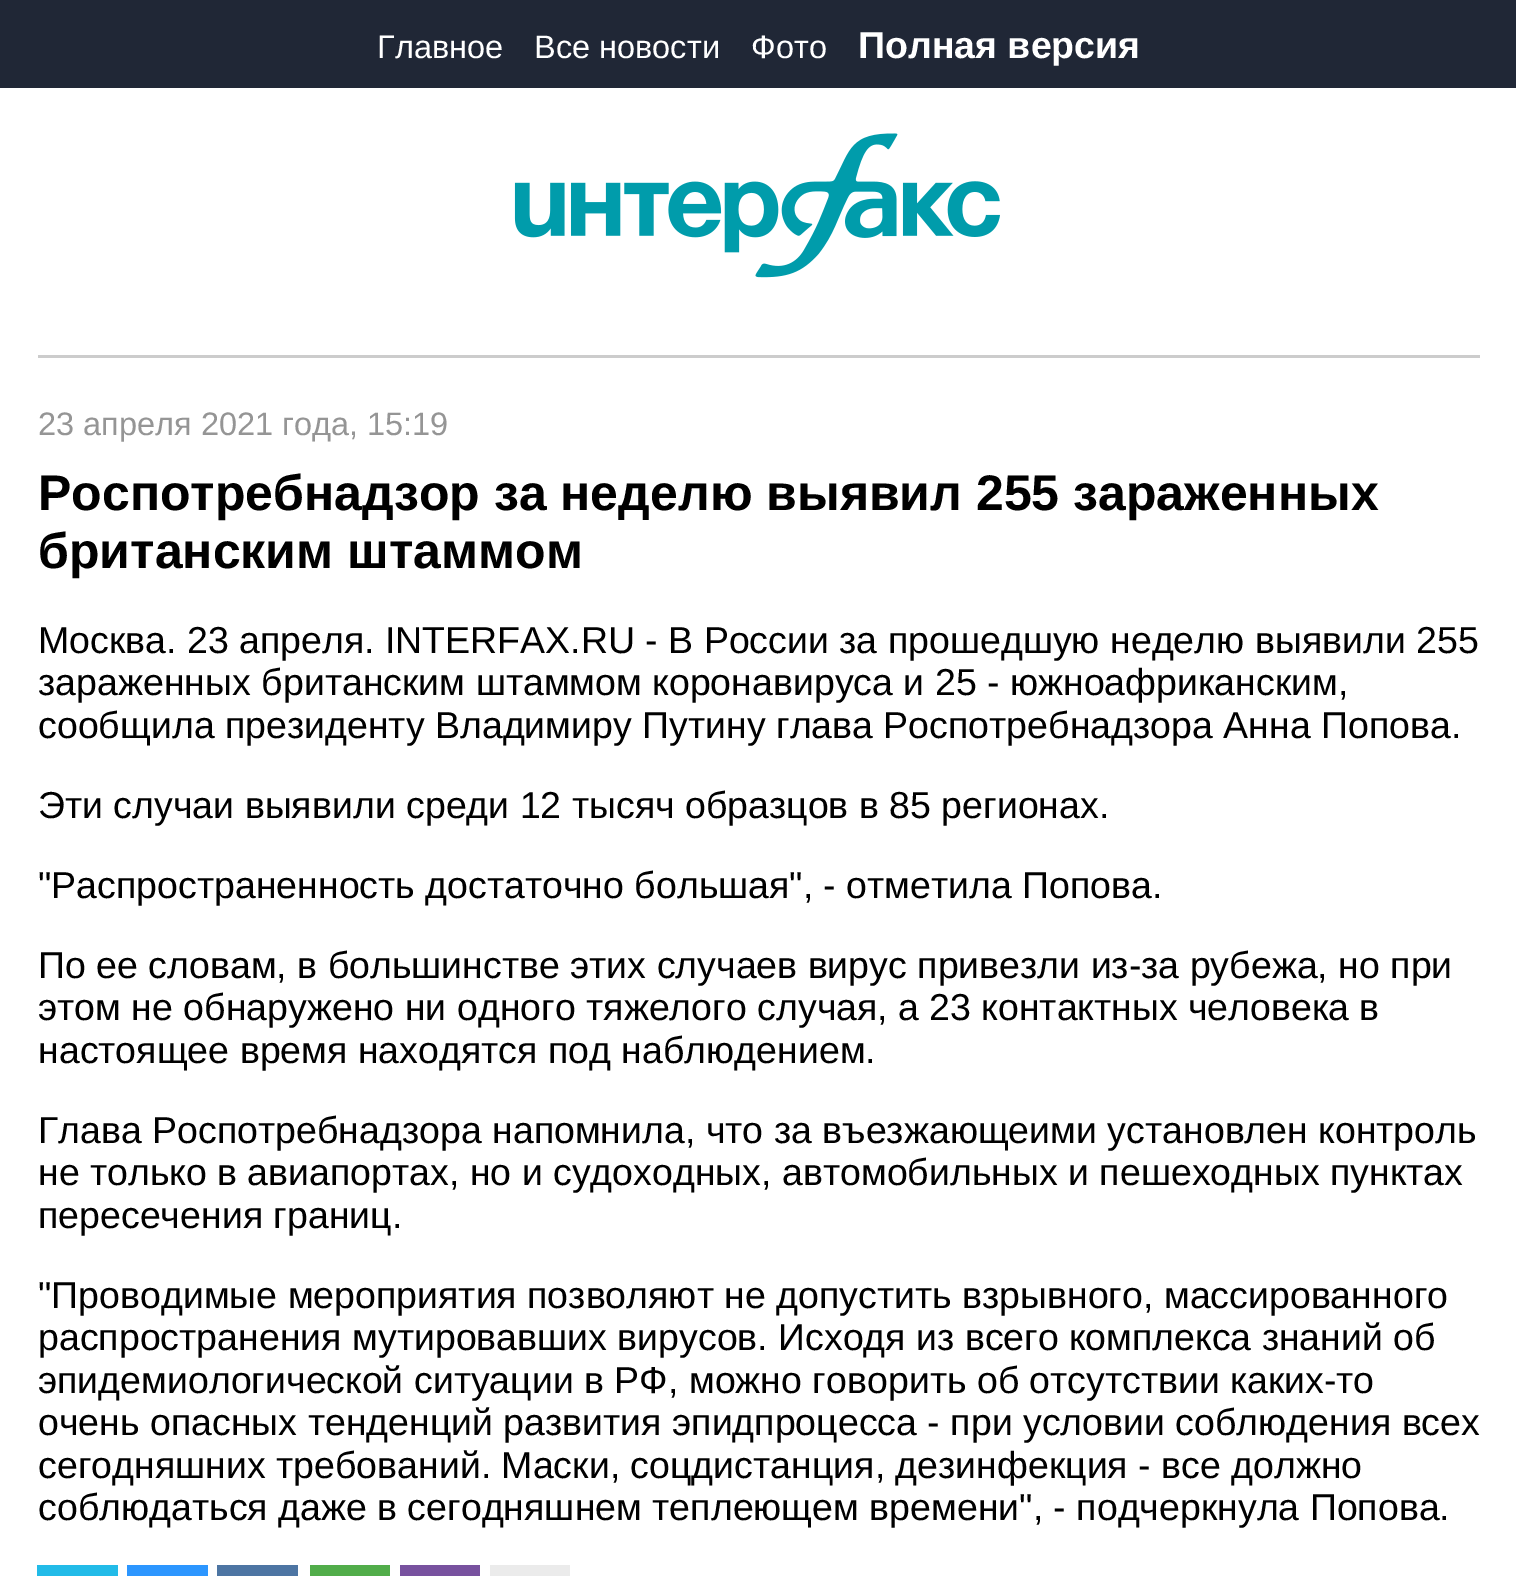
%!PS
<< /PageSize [1516 1576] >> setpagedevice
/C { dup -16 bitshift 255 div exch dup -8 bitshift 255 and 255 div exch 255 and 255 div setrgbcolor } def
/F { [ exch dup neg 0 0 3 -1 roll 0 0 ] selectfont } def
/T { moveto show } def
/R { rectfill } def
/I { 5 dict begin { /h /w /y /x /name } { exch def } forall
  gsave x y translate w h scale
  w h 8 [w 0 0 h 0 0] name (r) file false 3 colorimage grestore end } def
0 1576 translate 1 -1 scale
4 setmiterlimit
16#FFFFFF C
0 0 1516 1576 R
16#202736 C
0 0 1516 88 R
/LiberationSans-Regular 32.5 F
16#FFFFFF C
(Главное) 377 58 T
(Все новости) 534 58 T
(Фото) 751 58 T
/LiberationSans-Bold 37.5 F
(Полная версия) 858 58 T
(1.rgb) 514 133 486 145 I
16#CCCCCC C
38 355 1442 3 R
/LiberationSans-Regular 32.5 F
16#959595 C
(23 апреля 2021 года, 15:19) 38 435 T
/LiberationSans-Bold 50 F
16#000000 C
(Роспотребнадзор за неделю выявил 255 зараженных) 38 510 T
(британским штаммом) 38 568 T
/LiberationSans-Regular 37.5 F
(Москва. 23 апреля. INTERFAX.RU - В России за прошедшую неделю выявили 255) 38 653 T
(зараженных британским штаммом коронавируса и 25 - южноафриканским,) 38 695 T
(сообщила президенту Владимиру Путину глава Роспотребнадзора Анна Попова.) 38 738 T
(Эти случаи выявили среди 12 тысяч образцов в 85 регионах.) 38 818 T
("Распространенность достаточно большая", - отметила Попова.) 38 898 T
(По ее словам, в большинстве этих случаев вирус привезли из-за рубежа, но при) 38 978 T
(этом не обнаружено ни одного тяжелого случая, а 23 контактных человека в) 38 1020 T
(настоящее время находятся под наблюдением.) 38 1063 T
(Глава Роспотребнадзора напомнила, что за въезжающеими установлен контроль) 38 1143 T
(не только в авиапортах, но и судоходных, автомобильных и пешеходных пунктах) 38 1185 T
(пересечения границ.) 38 1228 T
("Проводимые мероприятия позволяют не допустить взрывного, массированного) 38 1308 T
(распространения мутировавших вирусов. Исходя из всего комплекса знаний об) 38 1350 T
(эпидемиологической ситуации в РФ, можно говорить об отсутствии каких-то) 38 1393 T
(очень опасных тенденций развития эпидпроцесса - при условии соблюдения всех) 38 1435 T
(сегодняшних требований. Маски, соцдистанция, дезинфекция - все должно) 38 1478 T
(соблюдаться даже в сегодняшнем теплеющем времени", - подчеркнула Попова.) 38 1520 T
16#22BBE8 C
37 1565 81 11 R
16#2C96FF C
127 1565 81 11 R
16#4D75A3 C
217 1565 81 11 R
16#51AD4A C
310 1565 80 11 R
16#78529F C
400 1565 80 11 R
16#EBEBEB C
490 1565 80 11 R
showpage
